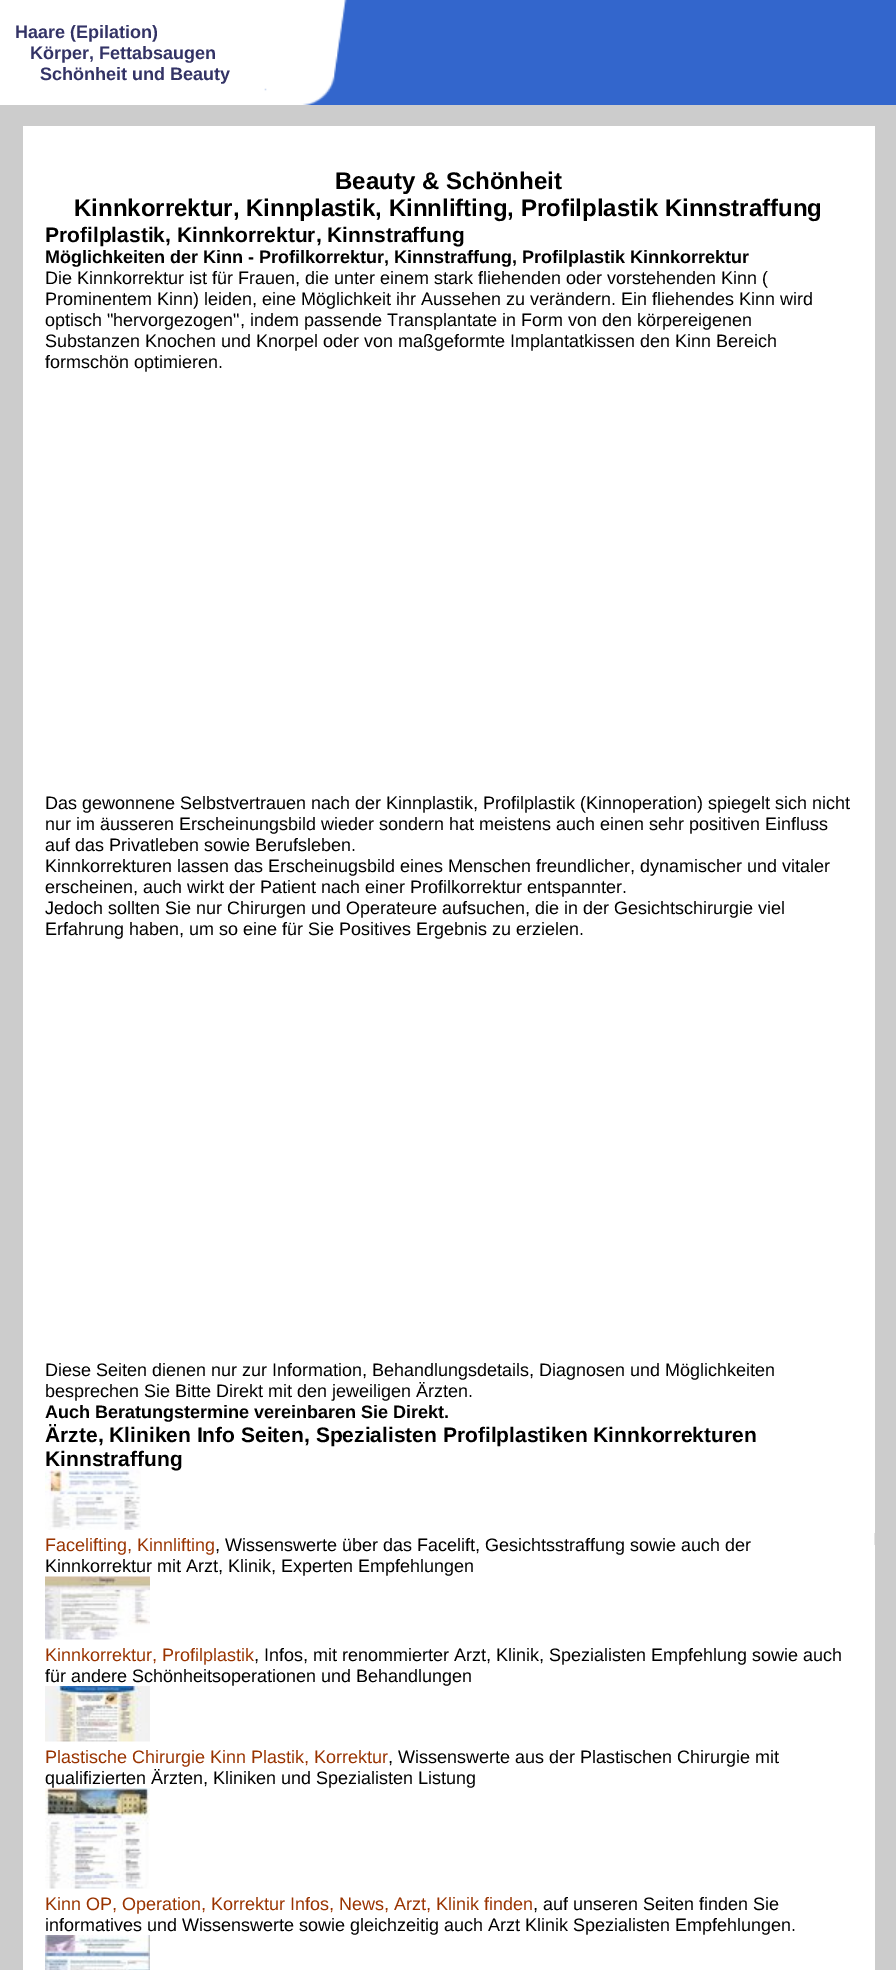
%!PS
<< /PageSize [896 1970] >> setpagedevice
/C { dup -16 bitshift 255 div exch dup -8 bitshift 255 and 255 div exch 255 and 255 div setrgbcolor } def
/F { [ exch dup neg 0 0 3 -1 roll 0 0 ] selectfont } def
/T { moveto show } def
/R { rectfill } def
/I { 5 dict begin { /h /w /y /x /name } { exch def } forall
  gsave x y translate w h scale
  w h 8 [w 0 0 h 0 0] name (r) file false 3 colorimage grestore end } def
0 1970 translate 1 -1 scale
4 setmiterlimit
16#CCCCCC C
0 0 896 1970 R
(1.rgb) 0 0 896 105 I
/LiberationSans-Bold 18 F
16#333366 C
(Haare \(Epilation\)) 15 38 T
(Körper, Fettabsaugen) 30 59 T
(Schönheit und Beauty) 40 80 T
16#FFFFFF C
23 126 852 1844 R
/LiberationSans-Bold 24 F
16#000000 C
(Beauty & Schönheit) 335 189 T
(Kinnkorrektur, Kinnplastik, Kinnlifting, Profilplastik Kinnstraffung) 74 216 T
/LiberationSans-Bold 21 F
(Profilplastik, Kinnkorrektur, Kinnstraffung) 45 242 T
/LiberationSans-Bold 18 F
(Möglichkeiten der Kinn - Profilkorrektur, Kinnstraffung, Profilplastik Kinnkorrektur) 45 263 T
/LiberationSans-Regular 18 F
(Die Kinnkorrektur ist für Frauen, die unter einem stark fliehenden oder vorstehenden Kinn \() 45 284 T
(Prominentem Kinn\) leiden, eine Möglichkeit ihr Aussehen zu verändern. Ein fliehendes Kinn wird) 45 305 T
(optisch "hervorgezogen", indem passende Transplantate in Form von den körpereigenen) 45 326 T
(Substanzen Knochen und Knorpel oder von maßgeformte Implantatkissen den Kinn Bereich) 45 347 T
(formschön optimieren.) 45 368 T
(Das gewonnene Selbstvertrauen nach der Kinnplastik, Profilplastik \(Kinnoperation\) spiegelt sich nicht) 45 809 T
(nur im äusseren Erscheinungsbild wieder sondern hat meistens auch einen sehr positiven Einfluss) 45 830 T
(auf das Privatleben sowie Berufsleben.) 45 851 T
(Kinnkorrekturen lassen das Erscheinugsbild eines Menschen freundlicher, dynamischer und vitaler) 45 872 T
(erscheinen, auch wirkt der Patient nach einer Profilkorrektur entspannter.) 45 893 T
(Jedoch sollten Sie nur Chirurgen und Operateure aufsuchen, die in der Gesichtschirurgie viel) 45 914 T
(Erfahrung haben, um so eine für Sie Positives Ergebnis zu erzielen.) 45 935 T
(Diese Seiten dienen nur zur Information, Behandlungsdetails, Diagnosen und Möglichkeiten) 45 1376 T
(besprechen Sie Bitte Direkt mit den jeweiligen Ärzten.) 45 1397 T
/LiberationSans-Bold 18 F
(Auch Beratungstermine vereinbaren Sie Direkt.) 45 1418 T
/LiberationSans-Bold 21 F
(Ärzte, Kliniken Info Seiten, Spezialisten Profilplastiken Kinnkorrekturen) 45 1442 T
(Kinnstraffung) 45 1466 T
(2.rgb) 45 1470 96 60 I
/LiberationSans-Regular 18 F
16#993300 C
(Facelifting, Kinnlifting) 45 1551 T
16#000000 C
(, Wissenswerte über das Facelift, Gesichtsstraffung sowie auch der) 215 1551 T
(Kinnkorrektur mit Arzt, Klinik, Experten Empfehlungen) 45 1572 T
(3.rgb) 45 1576 105 64 I
16#993300 C
(Kinnkorrektur, Profilplastik) 45 1661 T
16#000000 C
(, Infos, mit renommierter Arzt, Klinik, Spezialisten Empfehlung sowie auch) 254 1661 T
(für andere Schönheitsoperationen und Behandlungen) 45 1682 T
(4.rgb) 45 1686 105 56 I
16#993300 C
(Plastische Chirurgie Kinn Plastik, Korrektur) 45 1763 T
16#000000 C
(, Wissenswerte aus der Plastischen Chirurgie mit) 388 1763 T
(qualifizierten Ärzten, Kliniken und Spezialisten Listung) 45 1784 T
(5.rgb) 45 1788 105 101 I
16#993300 C
(Kinn OP, Operation, Korrektur Infos, News, Arzt, Klinik finden) 45 1910 T
16#000000 C
(, auf unseren Seiten finden Sie) 533 1910 T
(informatives und Wissenswerte sowie gleichzeitig auch Arzt Klinik Spezialisten Empfehlungen.) 45 1931 T
(6.rgb) 45 1935 105 35 I
16#E5E5E5 C
874 1533 1 12 R
showpage
